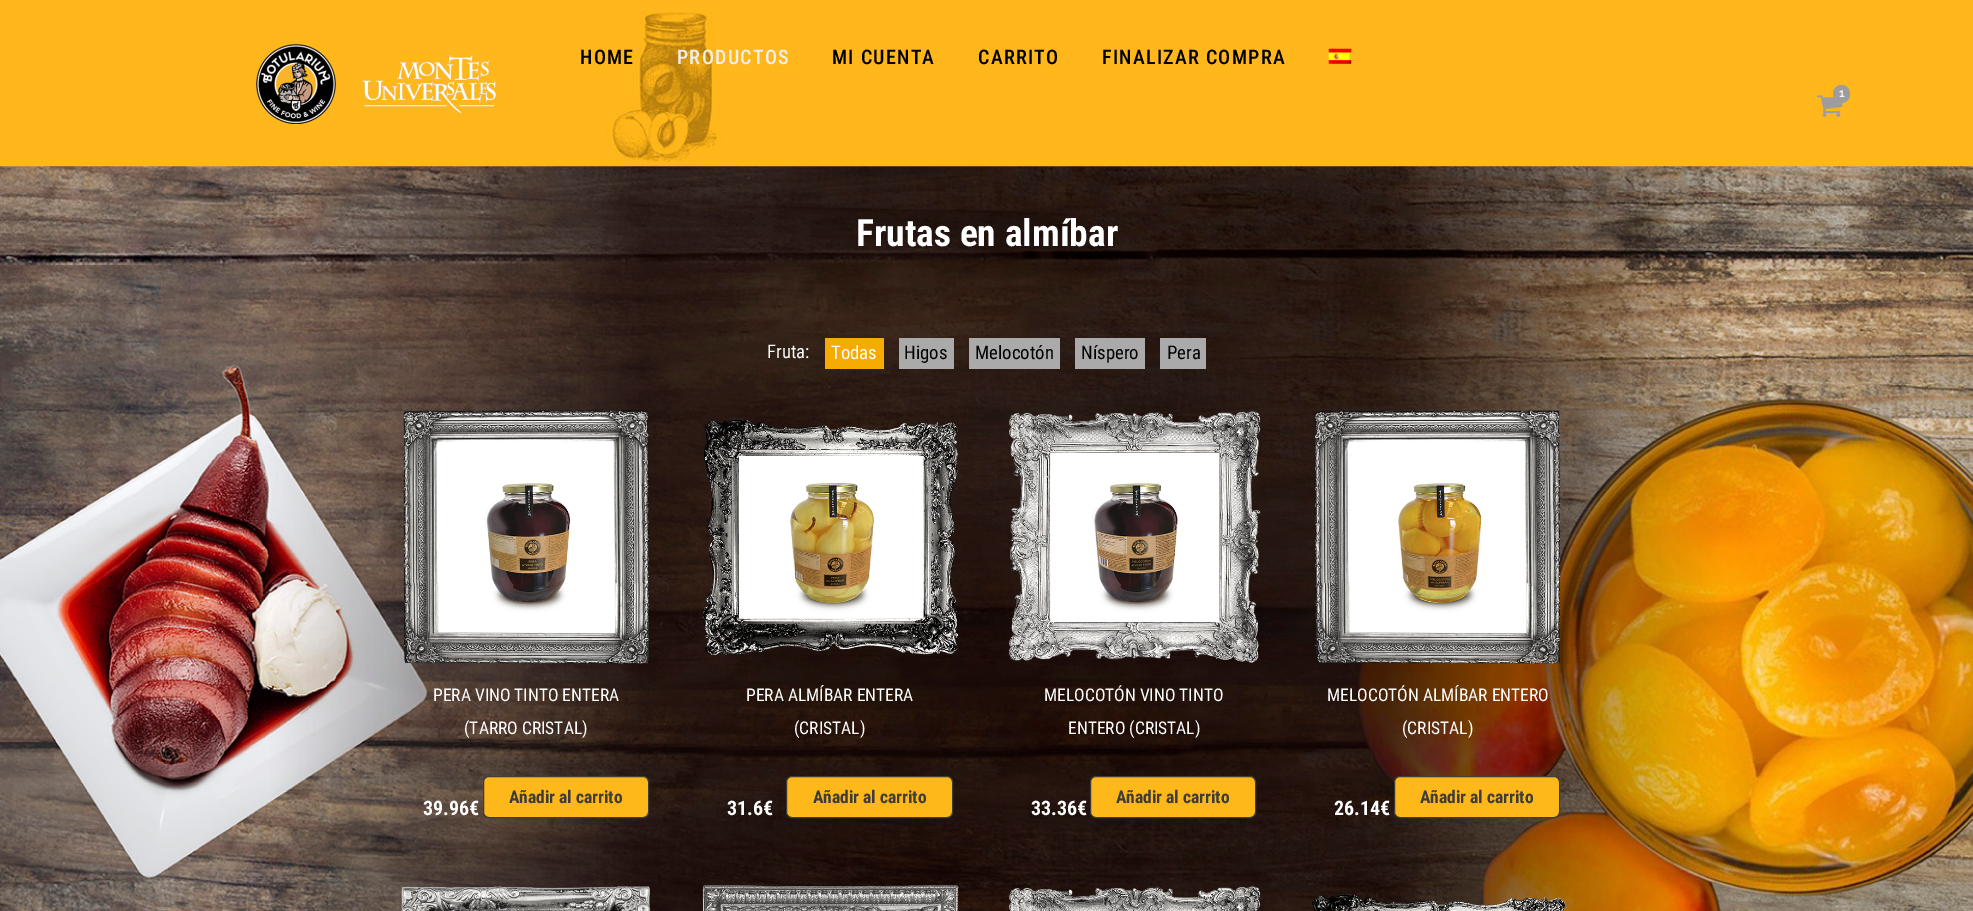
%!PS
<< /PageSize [1973 911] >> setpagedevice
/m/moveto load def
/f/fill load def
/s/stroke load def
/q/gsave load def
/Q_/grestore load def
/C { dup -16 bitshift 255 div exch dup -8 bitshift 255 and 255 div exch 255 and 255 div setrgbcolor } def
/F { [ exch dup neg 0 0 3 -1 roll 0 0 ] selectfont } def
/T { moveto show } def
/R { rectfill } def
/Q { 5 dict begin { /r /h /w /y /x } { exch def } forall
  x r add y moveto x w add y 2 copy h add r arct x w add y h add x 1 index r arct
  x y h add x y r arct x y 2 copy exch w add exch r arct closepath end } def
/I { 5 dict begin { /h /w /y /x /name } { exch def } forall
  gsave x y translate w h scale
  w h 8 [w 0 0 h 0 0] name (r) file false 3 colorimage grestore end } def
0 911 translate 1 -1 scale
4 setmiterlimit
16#FFFFFF C
0 0 1973 911 R
(5.rgb) 0 166 1973 745 I
(1.rgb) 0 0 1973 167 I
(2.rgb) 256 44 240 80 I
/RobotoCondensed-Medium 20 F
16#000000 C
580 64 m 1.25 0 (HOME) ashow
16#EFEFEF C
677 64 m 1.25 0 (PRODUCTOS) ashow
16#000000 C
832 64 m 1.25 0 (MI CUENTA) ashow
978 64 m 1.25 0 (CARRITO) ashow
1102 64 m 1.25 0 (FINALIZAR COMPRA) ashow
(3.rgb) 1328 48 24 16 I
(4.rgb) 1816 95 27 22 I
16#9D9D9D C
1833 85 17 18 8.5 Q f
/Raleway-SemiBold 12 F
16#FFFFFF C
(1) 1839 97 T
/RobotoCondensed-Bold 37.5 F
(Frutas en almíbar) 856 246 T
/RobotoCondensed-Regular 18.75 F
(Fruta:) 767 358 T
16#F6AB00 C
825 338 59 31 R
16#FFFFFF C
(Todas) 831 359 T
16#AAAAAA C
899 338 55 31 R
16#000000 C
(Higos) 904 359 T
16#AAAAAA C
969 338 91 31 R
16#000000 C
(Melocotón) 975 359 T
16#AAAAAA C
1075 338 70 31 R
16#000000 C
(Níspero) 1081 359 T
16#AAAAAA C
1160 338 46 31 R
16#000000 C
(Pera) 1167 359 T
(6.rgb) 403 410 246 254 I
/RobotoCondensed-Regular 17.5 F
16#FFFFFF C
(PERA VINO TINTO ENTERA) 433 701 T
(\(TARRO CRISTAL\)) 464 734 T
16#FFB819 C
483.5 776.5 165 41 5.5 Q q f Q_
16#3C3C3B C
s
/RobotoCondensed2-Bold 17.5 F
(Añadir al carrito) 509 803 T
/RobotoCondensed2-Bold 20 F
16#FFFFFF C
(39.96€) 423 815 T
(7.rgb) 703 419 256 236 I
/RobotoCondensed-Regular 17.5 F
(PERA ALMÍBAR ENTERA) 746 701 T
(\(CRISTAL\)) 794 734 T
16#FFB819 C
786.5 776.5 166 41 5.5 Q q f Q_
16#3C3C3B C
s
/RobotoCondensed2-Bold 17.5 F
(Añadir al carrito) 813 803 T
/RobotoCondensed2-Bold 20 F
16#FFFFFF C
(31.6€) 727 815 T
(8.rgb) 1009 411 252 252 I
/RobotoCondensed-Regular 17.5 F
(MELOCOTÓN VINO TINTO) 1044 701 T
(ENTERO \(CRISTAL\)) 1068 734 T
16#FFB819 C
1090.5 776.5 165 41 5.5 Q q f Q_
16#3C3C3B C
s
/RobotoCondensed2-Bold 17.5 F
(Añadir al carrito) 1116 803 T
/RobotoCondensed2-Bold 20 F
16#FFFFFF C
(33.36€) 1031 815 T
(9.rgb) 1315 410 246 254 I
/RobotoCondensed-Regular 17.5 F
(MELOCOTÓN ALMÍBAR ENTERO) 1327 701 T
(\(CRISTAL\)) 1402 734 T
16#FFB819 C
1394.5 776.5 165 41 5.5 Q q f Q_
16#3C3C3B C
s
/RobotoCondensed2-Bold 17.5 F
(Añadir al carrito) 1420 803 T
/RobotoCondensed2-Bold 20 F
16#FFFFFF C
(26.14€) 1334 815 T
(10.rgb) 401 886 249 25 I
(11.rgb) 702 885 257 26 I
(12.rgb) 1009 886 252 25 I
(13.rgb) 1312 894 254 17 I
showpage
